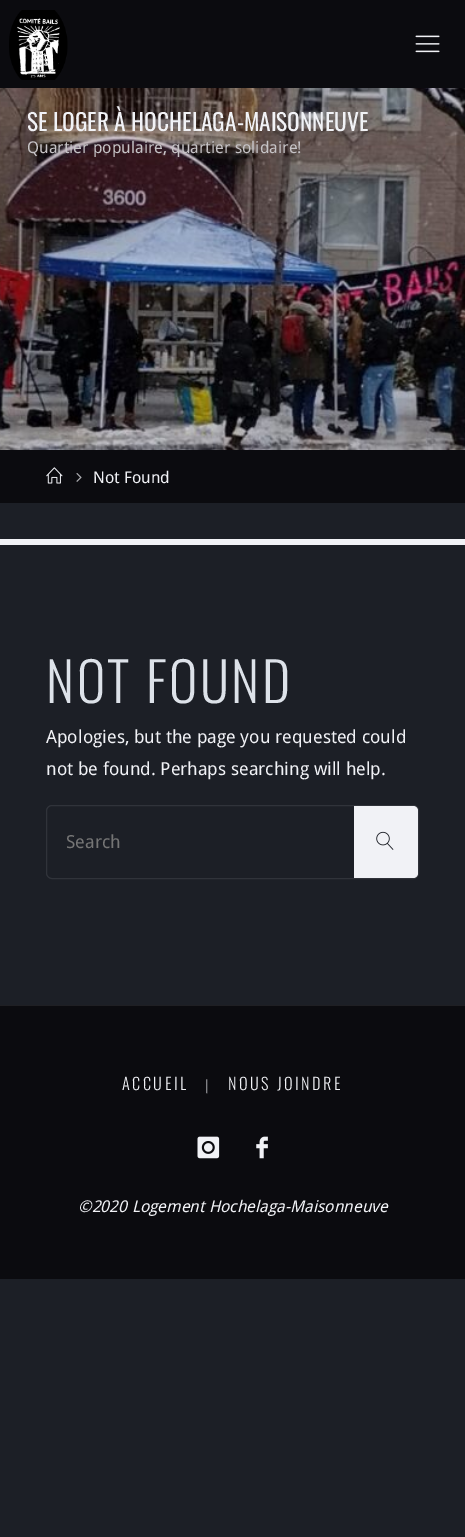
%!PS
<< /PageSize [465 1537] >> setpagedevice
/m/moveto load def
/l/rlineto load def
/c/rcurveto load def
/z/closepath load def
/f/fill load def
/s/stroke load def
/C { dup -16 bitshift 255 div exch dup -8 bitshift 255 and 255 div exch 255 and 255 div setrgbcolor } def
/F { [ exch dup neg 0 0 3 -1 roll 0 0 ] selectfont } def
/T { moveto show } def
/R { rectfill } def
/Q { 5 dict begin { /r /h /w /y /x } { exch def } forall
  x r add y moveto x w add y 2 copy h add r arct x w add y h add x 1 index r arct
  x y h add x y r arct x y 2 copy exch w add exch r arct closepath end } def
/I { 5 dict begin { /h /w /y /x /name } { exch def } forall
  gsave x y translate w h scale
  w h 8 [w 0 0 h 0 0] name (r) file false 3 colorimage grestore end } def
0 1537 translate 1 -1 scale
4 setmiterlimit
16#1C1F26 C
0 0 465 1537 R
(1.rgb) 0 88 465 362 I
16#0B0B0F C
0 0 465 88 R
(2.rgb) 415 35 25 18 I
(3.rgb) 9 10 59 70 I
/Oswald-Regular 23.4 F
16#F1F2F6 C
(SE LOGER À HOCHELAGA-MAISONNEUVE) 27 131 T
/DroidSans-Regular 16.25 F
16#C6C3C6 C
(Quartier populaire, quartier solidaire!) 27 153 T
16#0B0B0F C
0 450 465 53 R
(4.rgb) 46 467 17 17 I
(5.rgb) 76 473 6 9 I
16#F1F2F6 C
(Not Found) 93 483 T
0 539 465 6 R
/Oswald-Light 54 F
16#DDE2E9 C
46 703 m 2.5 0 (NOT FOUND) ashow
/DroidSans-Regular 18 F
16#F1F2F6 C
(Apologies, but the page you requested could) 46 743 T
(not be found. Perhaps searching will help.) 46 775 T
16#30333A C
46.5 805.5 372 73 5.5 Q s
16#F1F2F6 C
354 806 m 59 0 l 3 0 5 2 5 5 c 0 62 l 0 3 -2 5 -5 5 c -59 0 l z f
16#757575 C
(Search) 66 848 T
(6.rgb) 376 831 18 19 I
16#0B0B0F C
0 1006 465 273 R
16#1F1F23 C
0 1005 465 1 R
/Oswald-Light 16.25 F
16#F1F2F6 C
122 1090 m 2.5 0 (ACCUEIL) ashow
/DroidSans-Regular 14 F
16#ACADB1 C
203 1090 m 2.5 0 (|) ashow
/Oswald-Light 16.25 F
16#F1F2F6 C
228 1090 m 2.5 0 (NOUS JOINDRE) ashow
(7.rgb) 197 1136 23 23 I
(8.rgb) 256 1136 12 23 I
/DroidSans-Italic 16.25 F
(©2020 Logement Hochelaga-Maisonneuve) 78 1212 T
showpage
